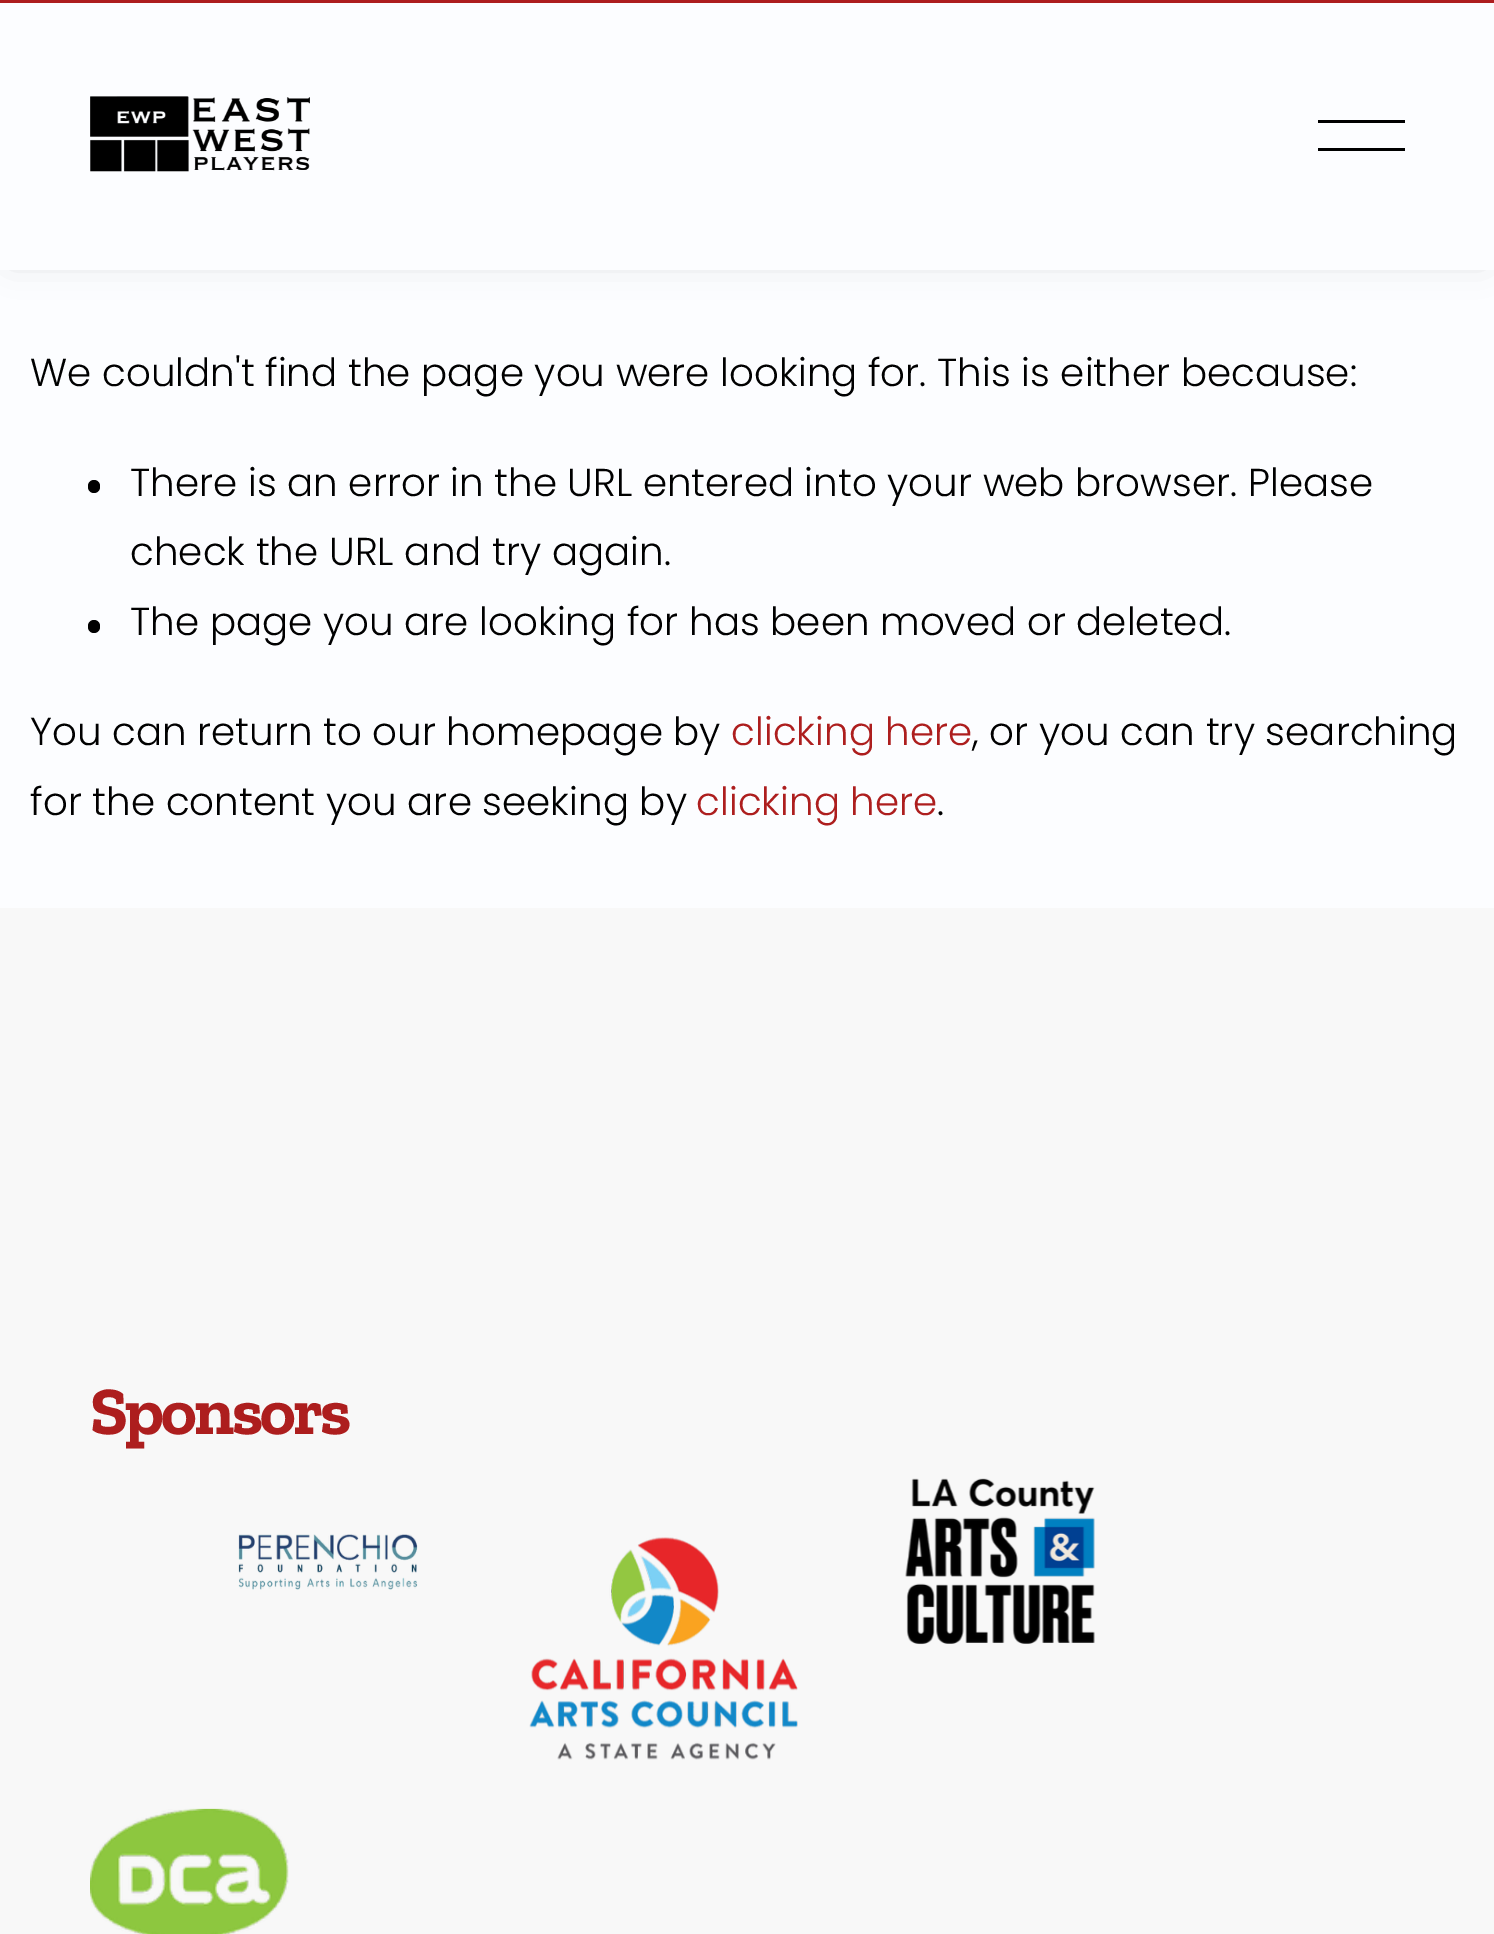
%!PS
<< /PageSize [1494 1934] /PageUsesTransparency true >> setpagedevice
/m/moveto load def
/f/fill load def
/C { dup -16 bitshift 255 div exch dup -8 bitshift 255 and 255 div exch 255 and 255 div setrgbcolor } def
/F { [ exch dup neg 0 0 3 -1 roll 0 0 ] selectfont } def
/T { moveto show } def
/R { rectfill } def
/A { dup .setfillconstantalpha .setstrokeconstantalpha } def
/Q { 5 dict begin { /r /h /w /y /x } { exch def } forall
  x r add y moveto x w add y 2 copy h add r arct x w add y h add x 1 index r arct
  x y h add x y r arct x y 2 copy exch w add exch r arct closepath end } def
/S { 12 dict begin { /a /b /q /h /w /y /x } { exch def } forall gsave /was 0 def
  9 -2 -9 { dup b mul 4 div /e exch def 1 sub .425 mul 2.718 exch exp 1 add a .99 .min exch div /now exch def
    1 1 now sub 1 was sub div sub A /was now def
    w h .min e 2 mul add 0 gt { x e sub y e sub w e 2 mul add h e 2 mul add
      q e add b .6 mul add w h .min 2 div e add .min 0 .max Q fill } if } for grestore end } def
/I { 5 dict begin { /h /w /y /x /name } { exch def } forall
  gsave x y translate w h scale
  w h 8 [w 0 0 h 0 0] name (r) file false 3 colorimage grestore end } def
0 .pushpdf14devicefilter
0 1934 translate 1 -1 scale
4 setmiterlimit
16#FCFDFF C
0 0 1494 1934 R
16#D6D7D9 C
10 13 1475 247 0 17.5 1 S
16#AD1E1F C
0 0 1494 3 R
16#FCFDFF C
0 3 1494 267 R
(1.rgb) 90 96 220 76 I
16#000000 C
1318 120 87 3 R
1318 148 87 3 R
/Poppins-Light 38.85 F
30 386 m -.1 0 32 (We couldn't find the page you were looking for. This is either because:) widthshow
88 480 12 13 6 Q f
130 496 m -.1 0 32 (There is an error in the URL entered into your web browser. Please) widthshow
(check the URL and try again.) 130 565 T
88 620 12 13 6 Q f
130 635 m -.1 0 32 (The page you are looking for has been moved or deleted.) widthshow
30 745 m -.1 0 32 (You can return to our homepage by) widthshow
16#AD1E1E C
(clicking here) 731 745 T
16#000000 C
(, or you can try searching) 972 745 T
(for the content you are seeking by) 30 815 T
16#AD1E1E C
(clicking here) 696 815 T
16#000000 C
(.) 937 815 T
16#F8F8F8 C
0 908 1494 1026 R
/ZillaSlab-Bold 68 F
16#AD1E1E C
90 1434 m -2.75 0 (Sponsors) ashow
(2.rgb) 238 1534 180 56 I
(3.rgb) 529 1537 269 223 I
(4.rgb) 905 1478 190 167 I
(5.rgb) 90 1808 199 126 I
.poppdf14devicefilter showpage
